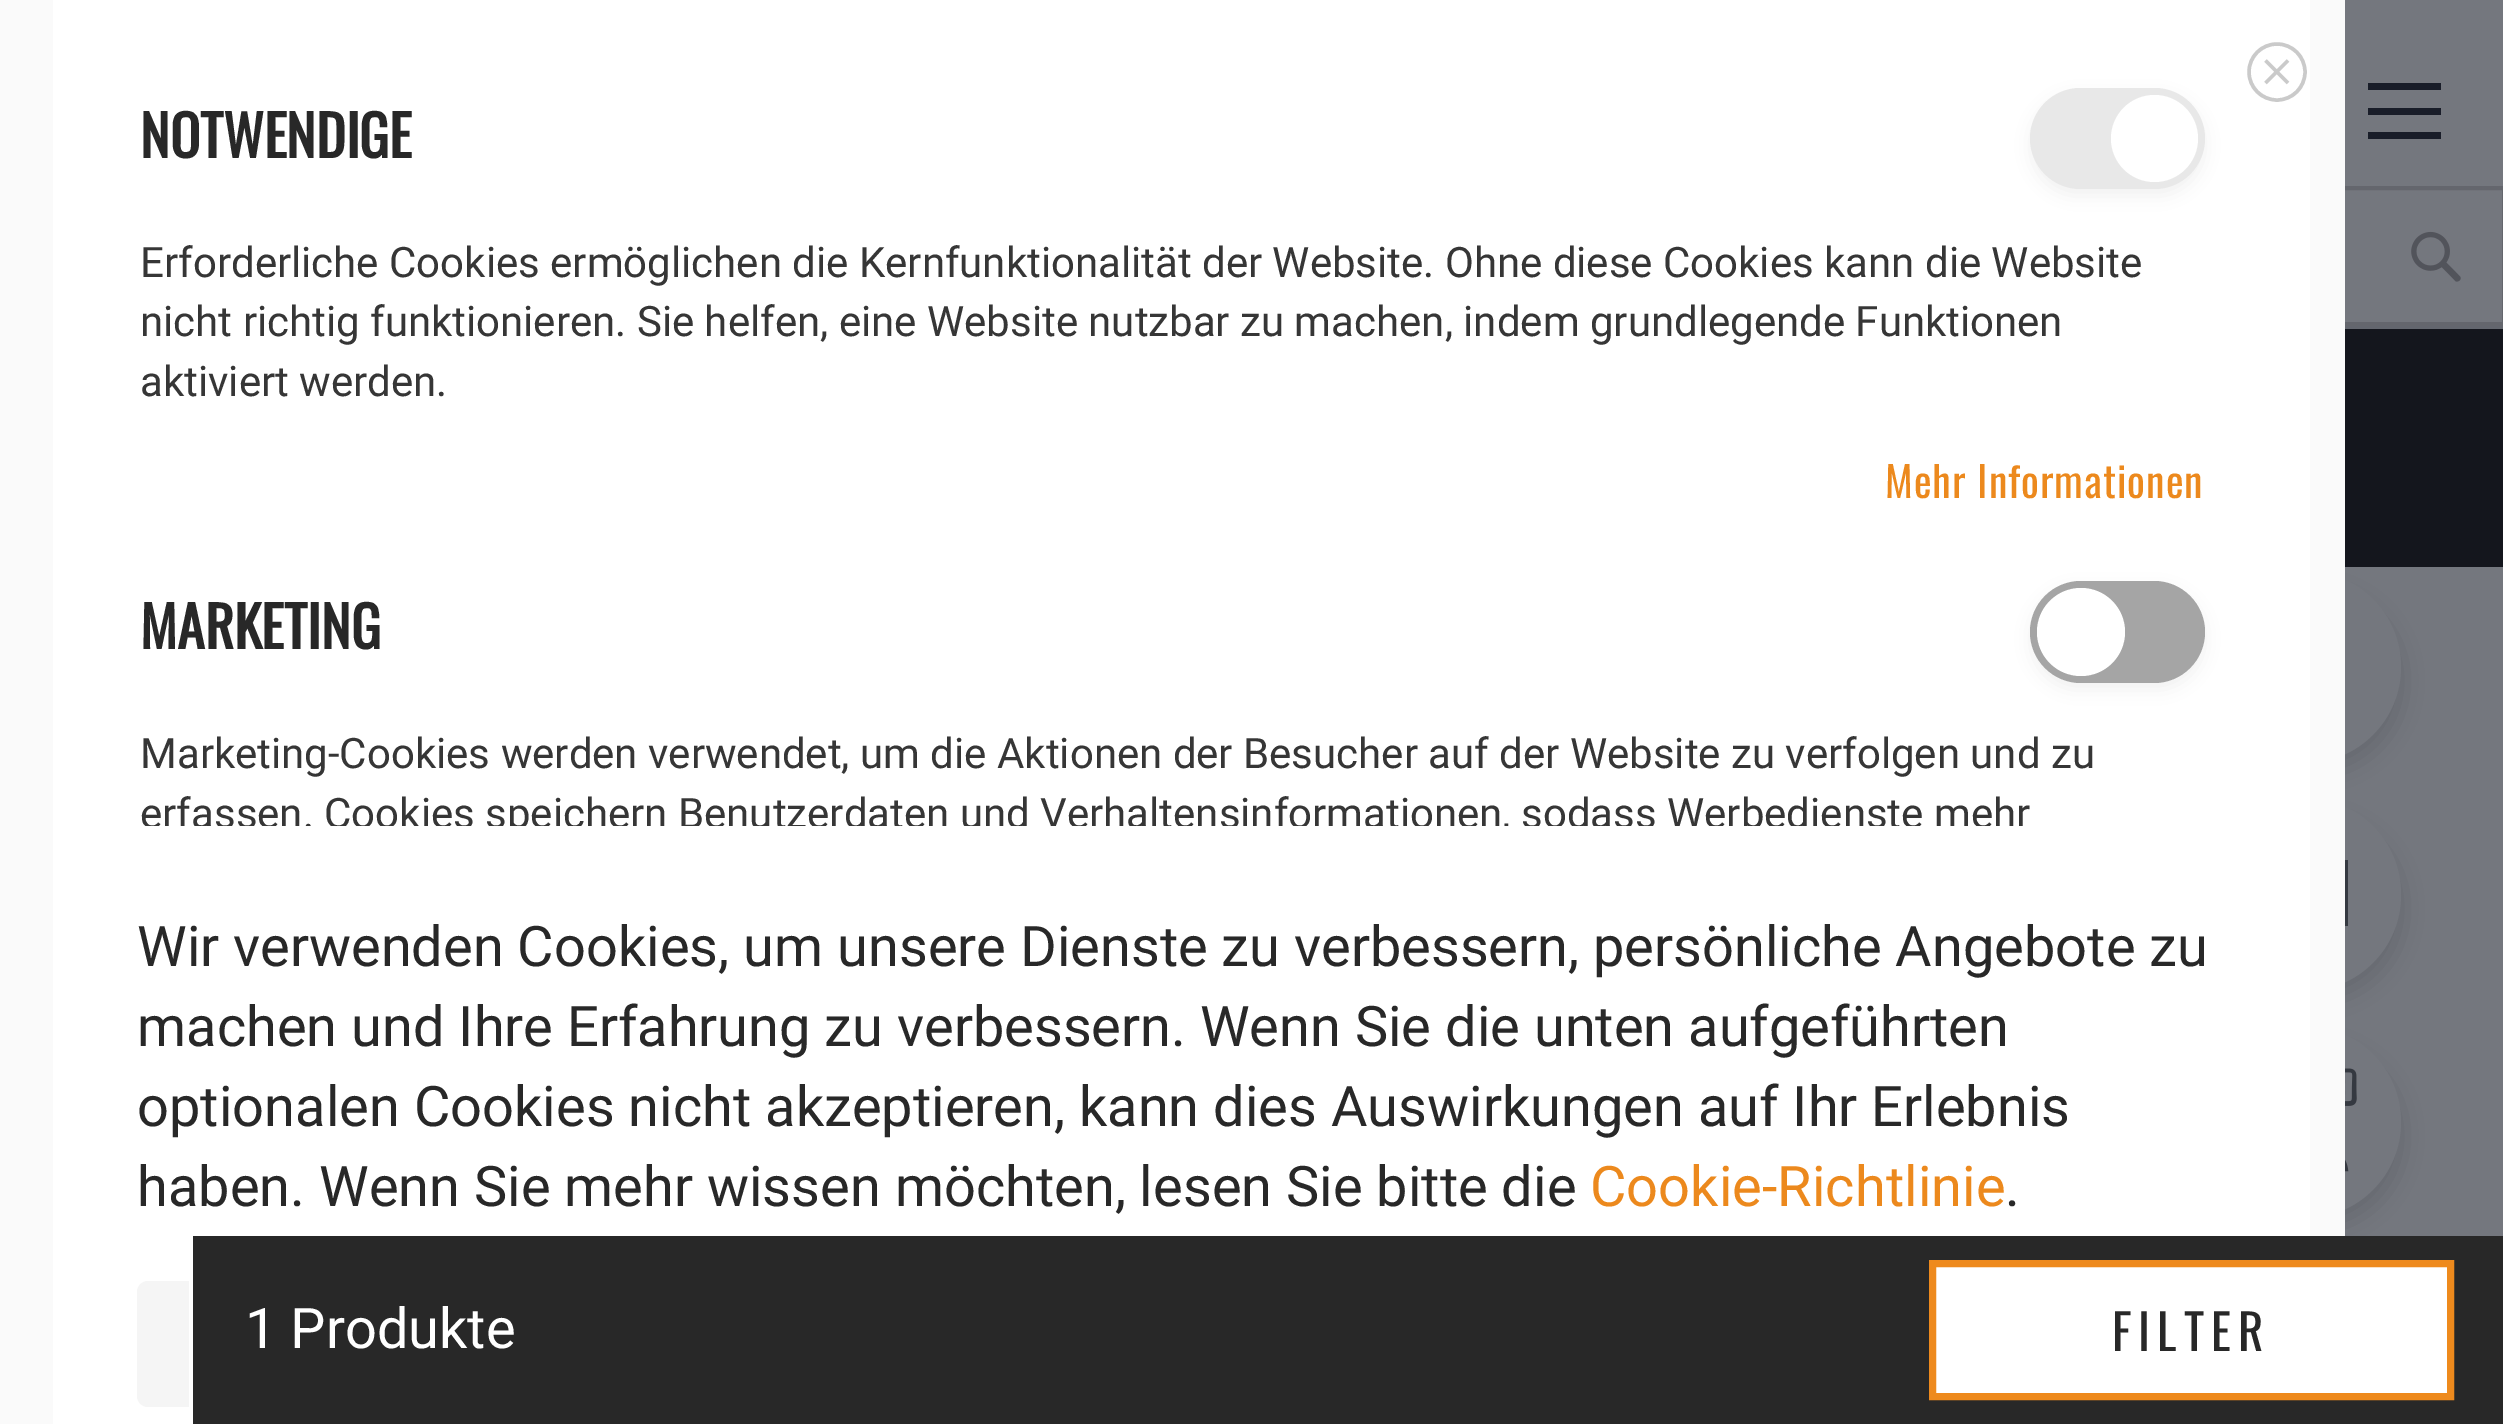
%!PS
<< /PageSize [2503 1424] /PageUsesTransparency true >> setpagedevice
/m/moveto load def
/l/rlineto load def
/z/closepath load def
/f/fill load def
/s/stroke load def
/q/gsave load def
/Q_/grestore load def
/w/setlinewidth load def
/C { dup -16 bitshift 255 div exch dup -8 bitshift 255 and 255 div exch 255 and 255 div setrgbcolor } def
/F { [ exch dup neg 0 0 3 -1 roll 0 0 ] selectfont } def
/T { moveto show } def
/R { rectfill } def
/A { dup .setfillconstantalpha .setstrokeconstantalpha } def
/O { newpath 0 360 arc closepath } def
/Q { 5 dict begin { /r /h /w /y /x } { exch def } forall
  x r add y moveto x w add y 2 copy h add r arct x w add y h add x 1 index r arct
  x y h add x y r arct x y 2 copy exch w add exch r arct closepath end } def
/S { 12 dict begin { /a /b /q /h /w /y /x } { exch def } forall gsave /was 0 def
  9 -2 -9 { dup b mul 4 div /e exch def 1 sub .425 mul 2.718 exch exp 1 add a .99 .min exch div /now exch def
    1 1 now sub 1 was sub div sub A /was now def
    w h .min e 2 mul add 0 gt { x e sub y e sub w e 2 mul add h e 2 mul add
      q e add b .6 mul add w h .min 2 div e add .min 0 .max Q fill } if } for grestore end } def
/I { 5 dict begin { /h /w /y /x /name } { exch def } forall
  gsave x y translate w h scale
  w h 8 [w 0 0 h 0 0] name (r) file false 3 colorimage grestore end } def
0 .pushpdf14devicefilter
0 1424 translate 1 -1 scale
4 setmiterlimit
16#63666E C
0 0 2503 1424 R
16#74777E C
2345 0 158 326 R
16#191D29 C
2368 83 m 0 7 l 73 0 l 0 -7 l z 2368 115 m 73 0 l 0 -7 l -73 0 l z 2368 139 m 73 0 l 0 -7 l -73 0 l z f
16#64666D C
4 w
2 188 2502 136 rectstroke
(1.rgb) 2411 231 50 51 I
16#14161D C
2345 329 158 238 R
16#74777E C
2345 567 158 669 R
16#02040B C
2223 592 178 178 89 14 .15 S
16#74777E C
2305 667 96 O f
16#02040B C
2223 819 178 179 89 14 .15 S
16#74777E C
2209 798 192 193 96 Q f
16#353941 C
2261 860 m 0 66 l 87 0 l 0 -66 l z 2339 867 m -34 28 l -35 -28 l z 2268 918 m 0 -43 l 37 30 l 36 -30 l 0 43 l z f
16#02040B C
2223 1047 178 178 89 14 .15 S
16#74777E C
2305 1122 96 O f
(2.rgb) 2345 1068 12 104 I
16#FAFAFA C
0 0 2345 1424 R
16#FFFFFF C
53 0 2257 1424 R
16#CACACA C
3.5 w
2277 72 28 O s
2265.5 60.5 m 22.5 22.5 l 2288 60.5 m -22.5 22.5 l s
/Oswald-Bold 56 F
16#282828 C
(NOTWENDIGE) 140 158 T
16#000000 C
2030 95 175 101 50.5 9 .05 S
16#E8E8E8 C
2030 88 175 101 50.5 Q f
16#FFFFFF C
2154.5 138.5 43.5 O f
/Roboto-Regular 42 F
16#363636 C
(Erforderliche Cookies ermöglichen die Kernfunktionalität der Website. Ohne diese Cookies kann die Website) 140 277 T
(nicht richtig funktionieren. Sie helfen, eine Website nutzbar zu machen, indem grundlegende Funktionen) 140 336 T
(aktiviert werden.) 140 396 T
/Oswald-Regular 42 F
16#EC891D C
1885 498 m 1 0 (Mehr Informationen) ashow
/Oswald-Bold 56 F
16#282828 C
(MARKETING) 140 649 T
16#000000 C
2030 588 175 102 51 9 .05 S
16#A5A5A5 C
2030 581 175 102 51 Q f
16#FFFFFF C
2081 632 44 O f
/Roboto-Regular 42 F
16#363636 C
(Marketing-Cookies werden verwendet, um die Aktionen der Besucher auf der Website zu verfolgen und zu) 140 768 T
q
53 0 2257 826 rectclip
(erfassen. Cookies speichern Benutzerdaten und Verhaltensinformationen, sodass Werbedienste mehr) 140 828 T
Q_
/Roboto-Regular 56 F
16#282828 C
(Wir verwenden Cookies, um unsere Dienste zu verbessern, persönliche Angebote zu) 137 966 T
(machen und Ihre Erfahrung zu verbessern. Wenn Sie die unten aufgeführten) 137 1046 T
(optionalen Cookies nicht akzeptieren, kann dies Auswirkungen auf Ihr Erlebnis) 137 1126 T
(haben. Wenn Sie mehr wissen möchten, lesen Sie bitte die) 137 1206 T
16#EC891D C
(Cookie-Richtlinie) 1590 1206 T
16#282828 C
(.) 2005 1206 T
16#F5F5F5 C
137 1281 2089 126 11 Q f
16#282828 C
193 1236 2310 188 R
16#FFFFFF C
189 1281 4 126 R
(1 Produkte) 245 1348 T
1932.5 1263.5 m 518 0 l 0 133 l -518 0 l z q f Q_
16#EE8A1D C
7 w
s
/Oswald-Regular 49 F
16#282828 C
2112 1351 m 7 0 (FILTER) ashow
.poppdf14devicefilter showpage
